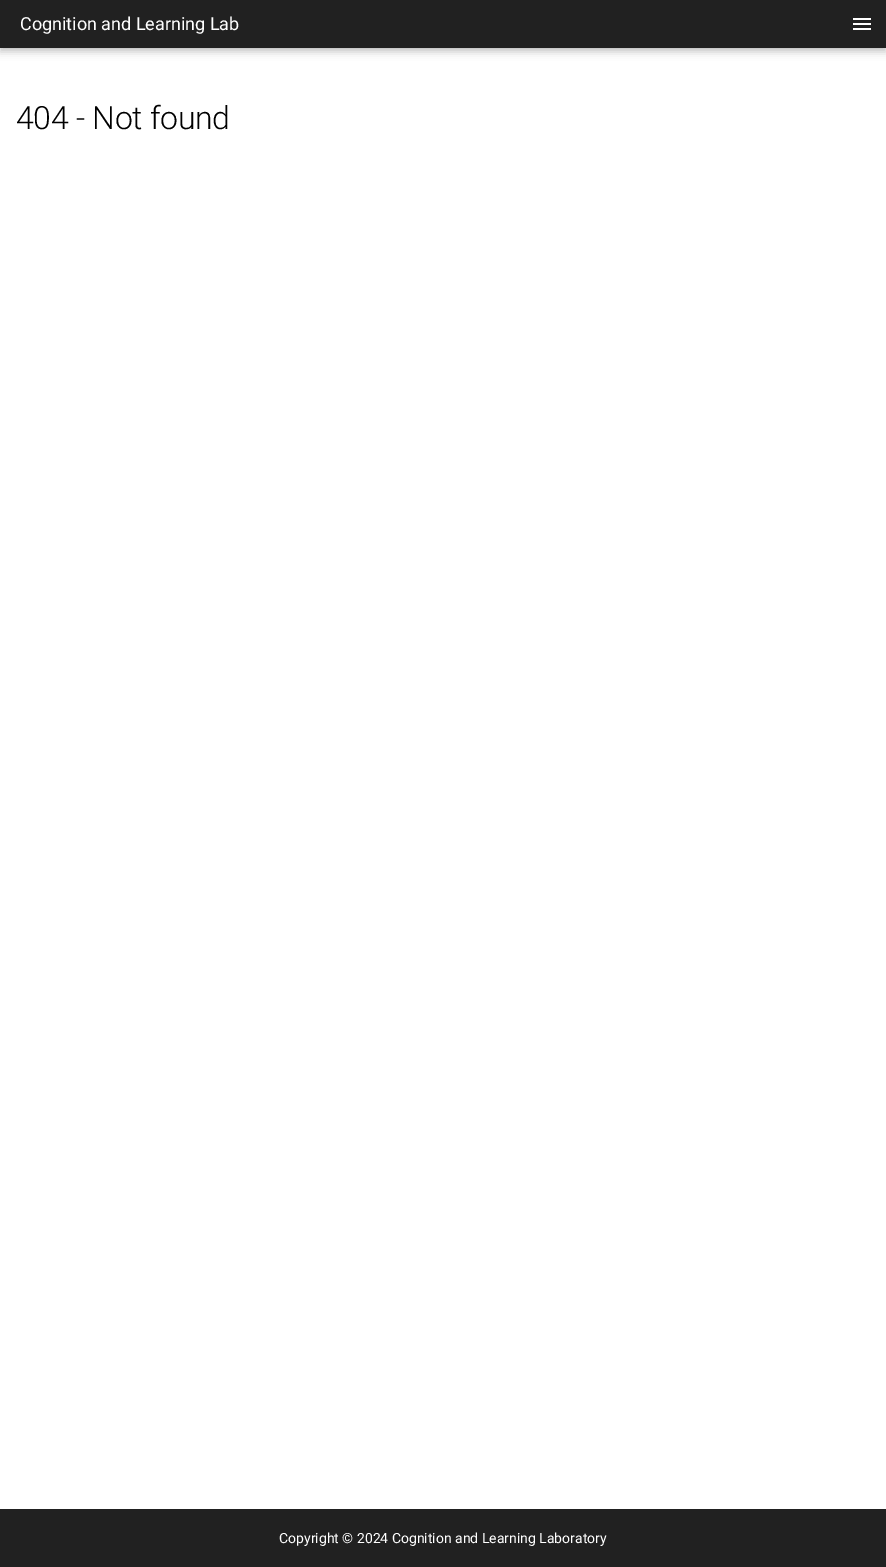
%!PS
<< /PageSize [886 1567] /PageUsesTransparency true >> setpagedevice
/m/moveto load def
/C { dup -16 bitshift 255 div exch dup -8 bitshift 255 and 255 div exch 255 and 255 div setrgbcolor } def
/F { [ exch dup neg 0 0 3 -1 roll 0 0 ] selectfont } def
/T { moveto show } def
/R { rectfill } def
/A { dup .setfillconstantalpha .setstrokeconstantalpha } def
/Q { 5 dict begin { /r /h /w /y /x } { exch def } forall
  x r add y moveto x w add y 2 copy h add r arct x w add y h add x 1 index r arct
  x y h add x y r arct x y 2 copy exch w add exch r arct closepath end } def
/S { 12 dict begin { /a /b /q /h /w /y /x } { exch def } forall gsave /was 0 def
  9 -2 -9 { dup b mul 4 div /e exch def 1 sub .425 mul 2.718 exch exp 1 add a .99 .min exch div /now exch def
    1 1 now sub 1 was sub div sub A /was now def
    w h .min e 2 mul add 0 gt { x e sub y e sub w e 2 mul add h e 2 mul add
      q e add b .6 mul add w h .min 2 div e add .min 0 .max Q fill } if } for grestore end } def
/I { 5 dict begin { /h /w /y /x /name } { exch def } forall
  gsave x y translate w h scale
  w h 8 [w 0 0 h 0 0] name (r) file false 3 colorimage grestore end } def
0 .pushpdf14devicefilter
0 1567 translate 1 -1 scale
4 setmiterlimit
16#FFFFFF C
0 0 886 1567 R
16#000000 C
0 4 886 48 0 4 .2 S
0 0 886 48 0 2 .1 S
16#212121 C
0 0 886 48 R
/Roboto-Regular 18 F
16#FFFFFF C
(Cognition and Learning Lab) 20 30 T
(1.rgb) 853 18 18 12 I
/Roboto-Light 32 F
16#000000 C
16 129 m -.3 0 (404 - Not found) ashow
16#212121 C
0 1509 886 58 R
/Roboto-Regular 14 F
16#FFFFFF C
(Copyright © 2024 Cognition and Learning Laboratory) 279 1543 T
.poppdf14devicefilter showpage
